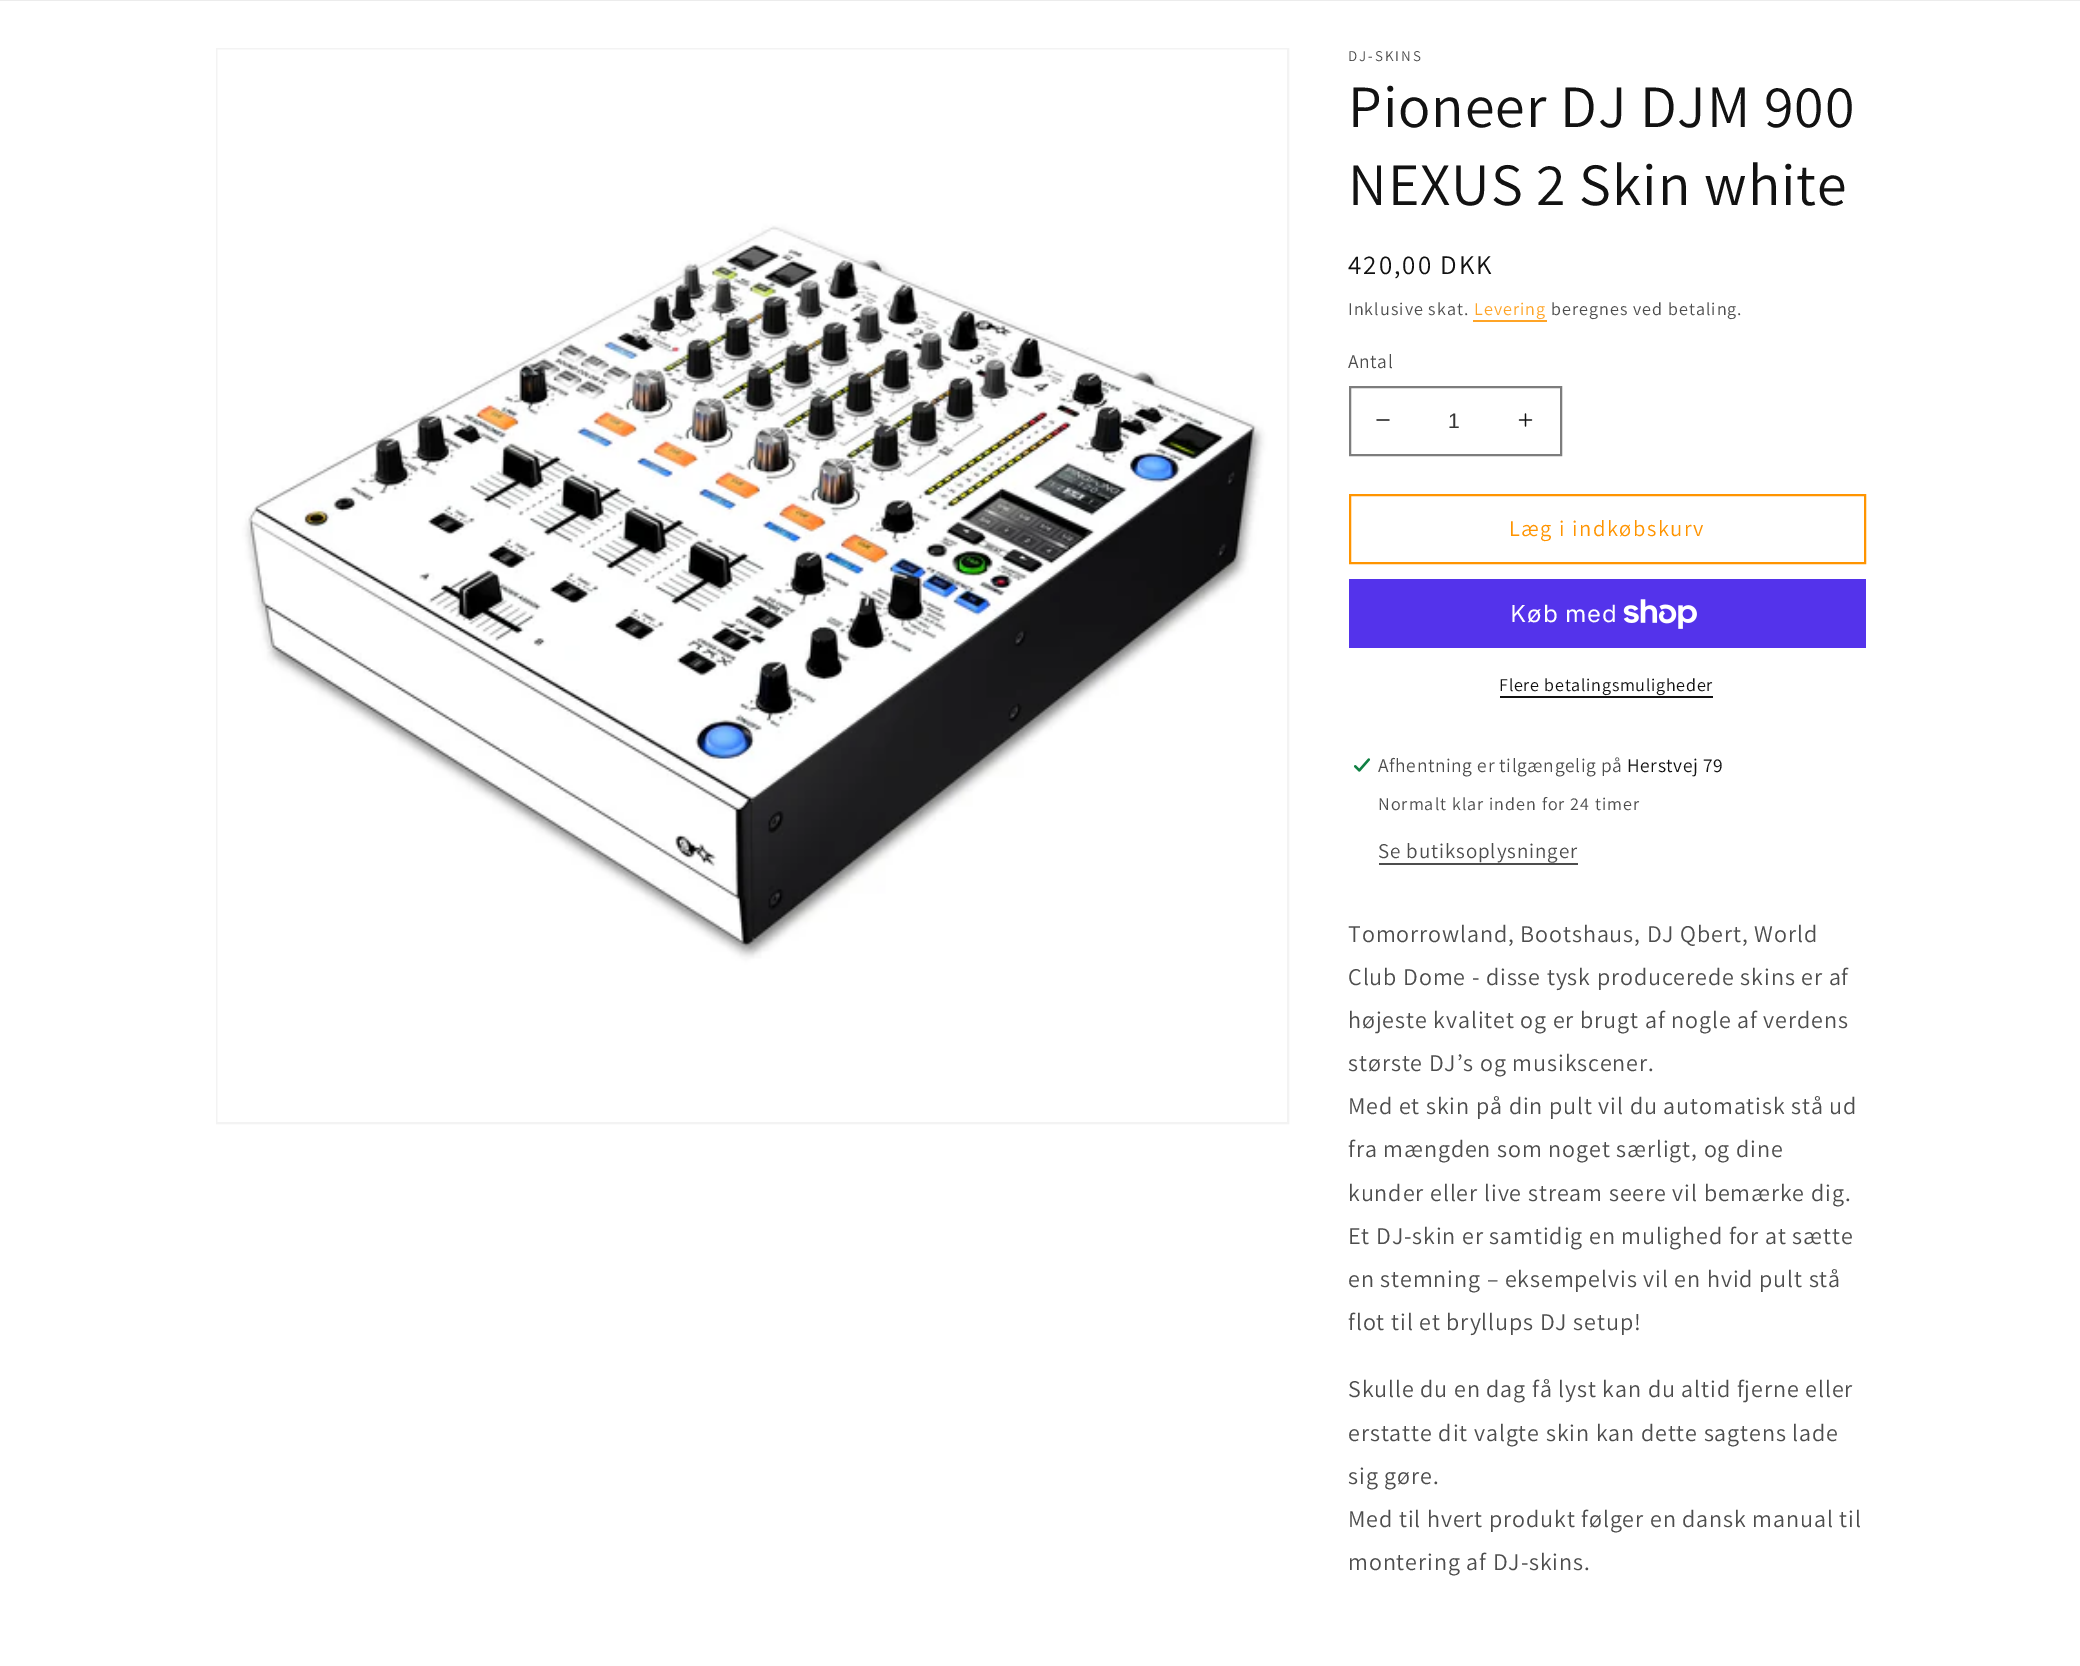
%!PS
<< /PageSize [2080 1666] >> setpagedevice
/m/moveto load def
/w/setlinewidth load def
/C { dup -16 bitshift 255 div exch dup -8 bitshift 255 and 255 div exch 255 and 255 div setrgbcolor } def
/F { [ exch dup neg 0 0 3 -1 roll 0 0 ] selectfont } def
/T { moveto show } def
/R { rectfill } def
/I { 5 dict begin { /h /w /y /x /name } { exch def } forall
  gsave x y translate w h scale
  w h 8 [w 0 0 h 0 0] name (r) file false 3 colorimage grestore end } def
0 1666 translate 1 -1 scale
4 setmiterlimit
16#FFFFFF C
0 0 2080 1666 R
16#ECECEC C
0 0 2080 1 R
16#F3F3F3 C
2 w
217 49 1071 1074 rectstroke
(1.rgb) 217 49 1070 1073 I
/Assistant-Regular 15 F
16#4D4D4D C
1348 61 m 2 0 (DJ-SKINS) ashow
/Assistant-Regular 60 F
16#121212 C
1348 127 m .9 0 (Pioneer DJ DJM 900) ashow
1348 205 m .9 0 (NEXUS 2 Skin white) ashow
/Assistant-Regular 27 F
1348 274 m 2 0 (420,00 DKK) ashow
/Assistant-Regular 18 F
16#4D4D4D C
1348 315 m 1.05 0 (Inklusive skat.) ashow
16#FFA426 C
1474 315 m 1.05 0 (Levering) ashow
1473 320 74 2 R
16#4D4D4D C
1551 315 m 1.05 0 (beregnes ved betaling.) ashow
/Assistant-Regular 19.5 F
1348 368 m .6 0 (Antal) ashow
(2.rgb) 1376 419 14 2 I
(3.rgb) 1518 413 15 14 I
16#7D7D7D C
1350 387 211 68 rectstroke
/LiberationSans-Regular 21 F
16#363636 C
(1) 1448 428 T
16#FF9400 C
1350 495 515 68 rectstroke
/Assistant-Regular 22.5 F
1509 536 m 1.5 0 (Læg i indkøbskurv) ashow
16#5433EB C
1349 579 517 69 R
/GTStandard-Regular 24 F
16#FFFFFF C
1510 622 m .9 0 (Køb med) ashow
(4.rgb) 1623 599 74 30 I
/Assistant-Regular 18 F
16#121212 C
1499 691 m .75 0 (Flere betalingsmuligheder) ashow
1500 696 213 2 R
(5.rgb) 1353 758 18 14 I
/Assistant-Regular 19.5 F
16#4D4D4D C
1378 772 m .6 0 (Afhentning er tilgængelig på) ashow
16#121212 C
1627 772 m .6 0 (Herstvej 79) ashow
/Assistant-Regular 18 F
16#4D4D4D C
1378 810 m 1.05 0 (Normalt klar inden for 24 timer) ashow
/Assistant-Regular 21 F
1378 858 m .9 0 (Se butiksoplysninger) ashow
1379 863 199 2 R
/Assistant-Regular 24 F
1348 942 m .9 0 (Tomorrowland, Bootshaus, DJ Qbert, World) ashow
1348 985 m .9 0 (Club Dome - disse tysk producerede skins er af) ashow
1348 1028 m .9 0 (højeste kvalitet og er brugt af nogle af verdens) ashow
1348 1071 m .9 0 (største DJ’s og musikscener.) ashow
1348 1114 m .9 0 (Med et skin på din pult vil du automatisk stå ud) ashow
1348 1157 m .9 0 (fra mængden som noget særligt, og dine) ashow
1348 1201 m .9 0 (kunder eller live stream seere vil bemærke dig.) ashow
1348 1244 m .9 0 (Et DJ-skin er samtidig en mulighed for at sætte) ashow
1348 1287 m .9 0 (en stemning – eksempelvis vil en hvid pult stå) ashow
1348 1330 m .9 0 (flot til et bryllups DJ setup!) ashow
1348 1397 m .9 0 (Skulle du en dag få lyst kan du altid fjerne eller) ashow
1348 1441 m .9 0 (erstatte dit valgte skin kan dette sagtens lade) ashow
1348 1484 m .9 0 (sig gøre.) ashow
1348 1527 m .9 0 (Med til hvert produkt følger en dansk manual til) ashow
1348 1570 m .9 0 (montering af DJ-skins.) ashow
showpage
